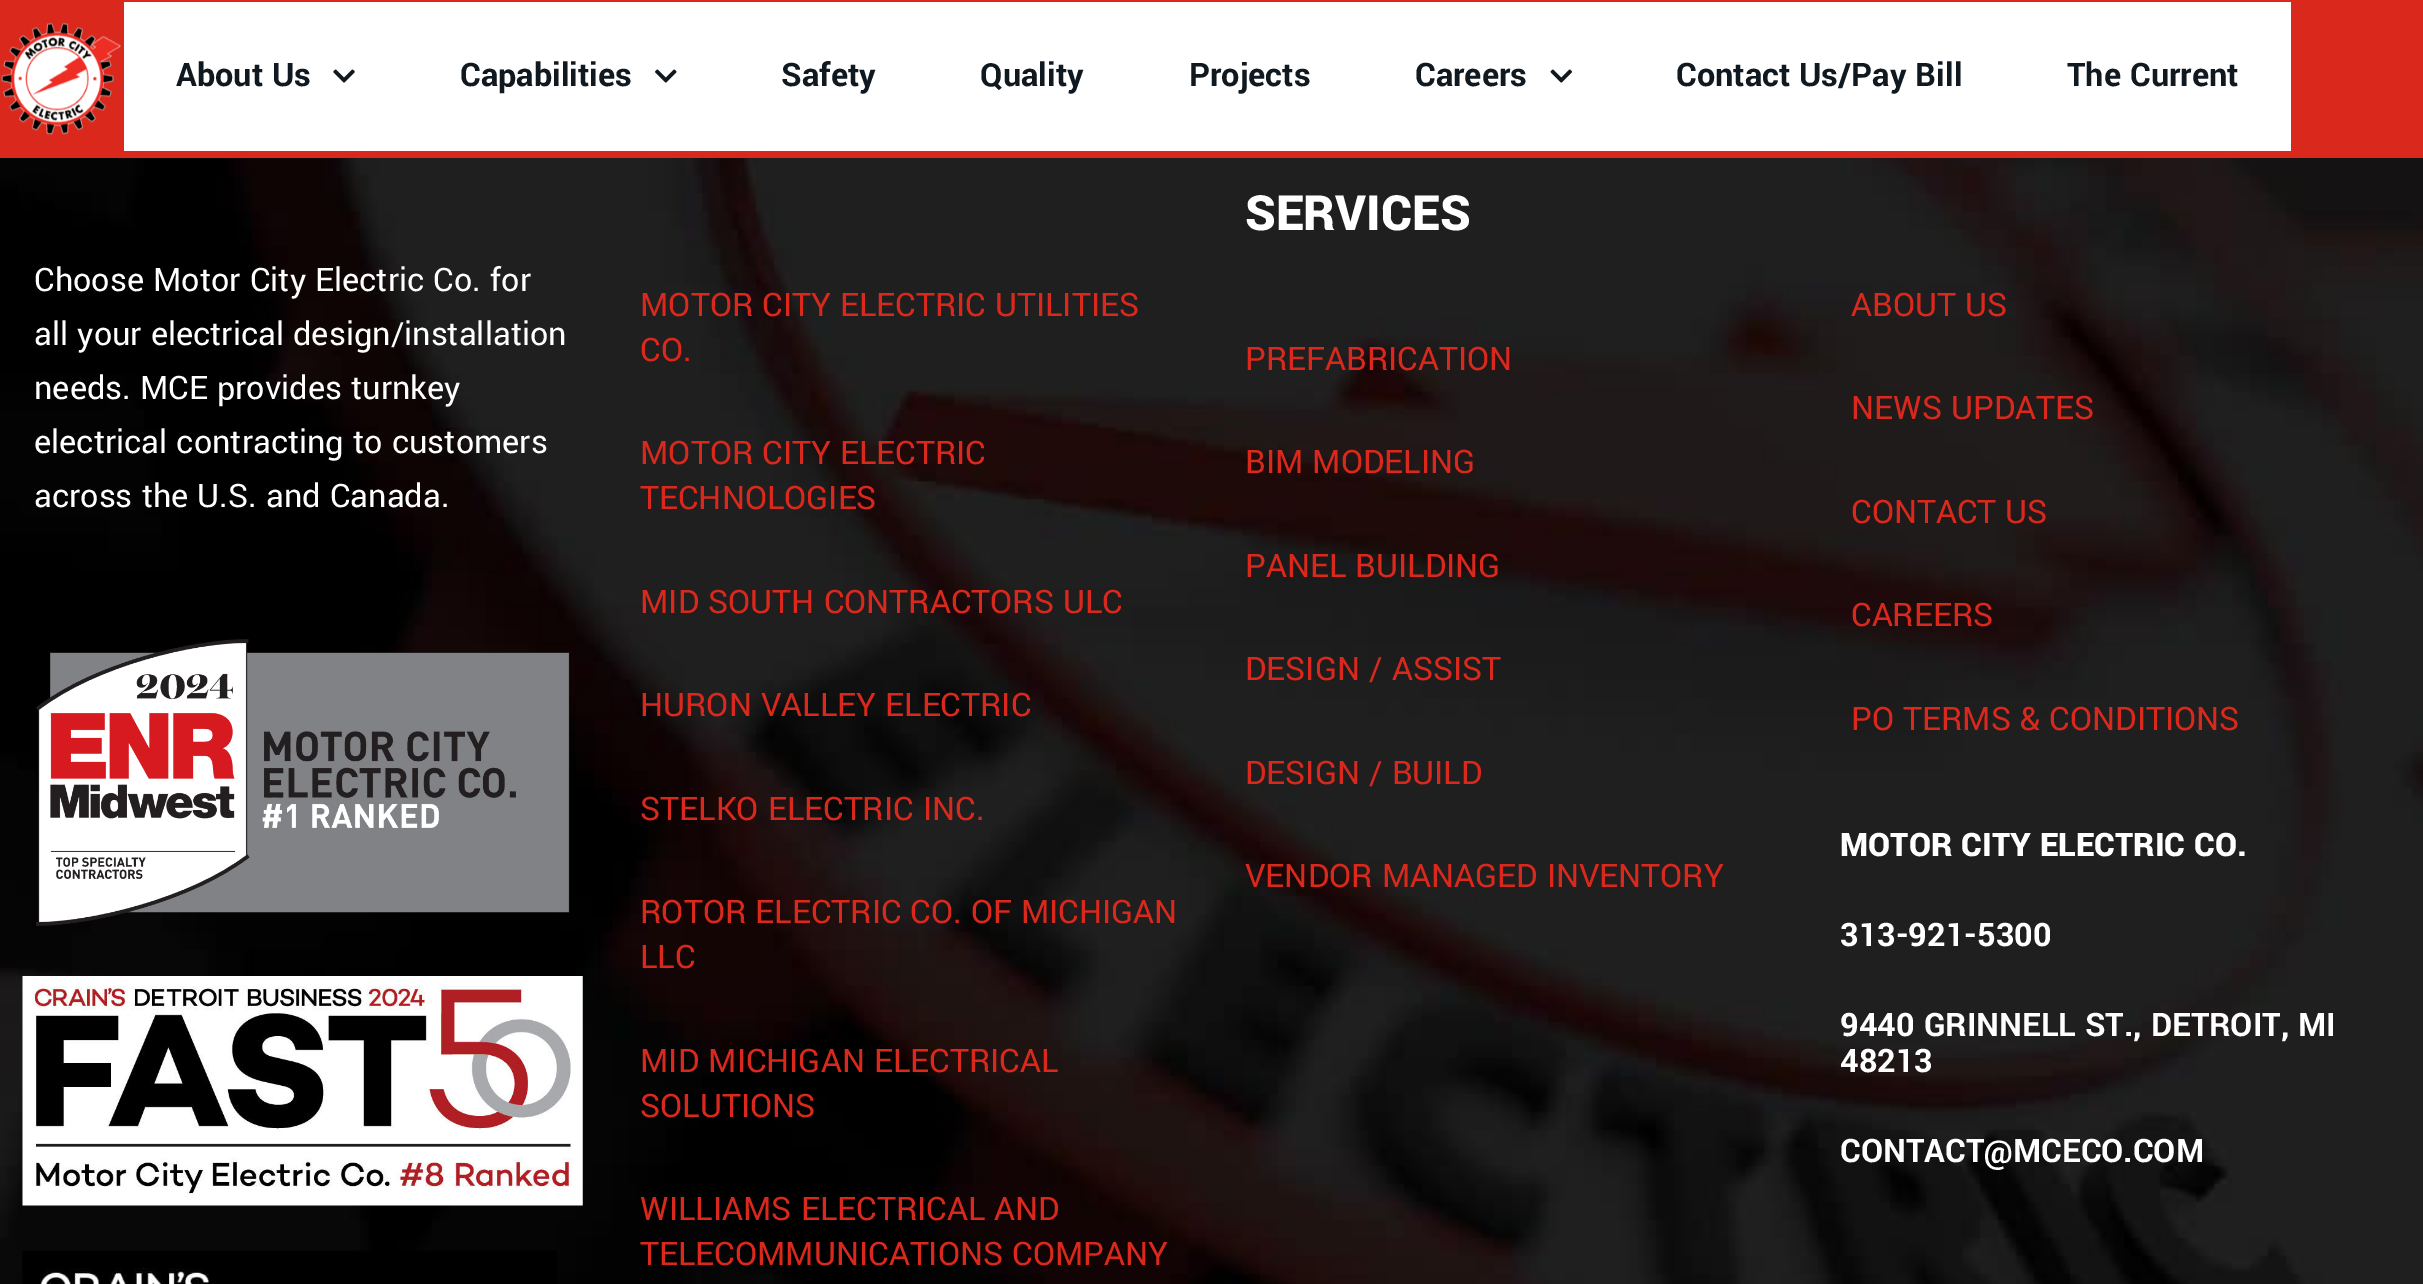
%!PS
<< /PageSize [2423 1284] >> setpagedevice
/C { dup -16 bitshift 255 div exch dup -8 bitshift 255 and 255 div exch 255 and 255 div setrgbcolor } def
/F { [ exch dup neg 0 0 3 -1 roll 0 0 ] selectfont } def
/T { moveto show } def
/R { rectfill } def
/I { 5 dict begin { /h /w /y /x /name } { exch def } forall
  gsave x y translate w h scale
  w h 8 [w 0 0 h 0 0] name (r) file false 3 colorimage grestore end } def
0 1284 translate 1 -1 scale
4 setmiterlimit
16#FFFFFF C
0 0 2423 1284 R
16#DA291C C
0 0 2423 158 R
(1.rgb) 1 22 120 113 I
16#FFFFFF C
124 2 2167 149 R
/Yantramanav-Bold 36 F
16#101820 C
(About Us) 176 86 T
(2.rgb) 333 69 22 14 I
(Capabilities) 460 86 T
(3.rgb) 655 69 22 14 I
(Safety) 781 86 T
(Quality) 980 86 T
(Projects) 1189 86 T
(Careers) 1415 86 T
(4.rgb) 1550 69 22 14 I
(Contact Us/Pay Bill) 1676 86 T
(The Current) 2067 86 T
(5.rgb) 0 158 2423 1126 I
/Yantramanav-Regular 36 F
16#FFFFFF C
(Choose Motor City Electric Co. for) 34 291 T
(all your electrical design/installation) 34 345 T
(needs. MCE provides turnkey) 34 399 T
(electrical contracting to customers) 34 453 T
(across the U.S. and Canada.) 34 507 T
(6.rgb) 36 639 534 287 I
(7.rgb) 22 976 561 230 I
(8.rgb) 22 1250 535 34 I
16#DA291C C
(MOTOR CITY ELECTRIC UTILITIES) 640 316 T
(CO.) 640 361 T
(MOTOR CITY ELECTRIC) 640 464 T
(TECHNOLOGIES) 640 509 T
(MID SOUTH CONTRACTORS ULC) 640 613 T
(HURON VALLEY ELECTRIC) 640 716 T
(STELKO ELECTRIC INC.) 640 820 T
(ROTOR ELECTRIC CO. OF MICHIGAN) 640 923 T
(LLC) 640 968 T
(MID MICHIGAN ELECTRICAL) 640 1072 T
(SOLUTIONS) 640 1117 T
(WILLIAMS ELECTRICAL AND) 640 1220 T
(TELECOMMUNICATIONS COMPANY) 640 1265 T
/Yantramanav-Black 54 F
16#FFFFFF C
(SERVICES) 1245 230 T
/Yantramanav-Regular 36 F
16#DA291C C
(PREFABRICATION) 1245 370 T
(BIM MODELING) 1245 473 T
(PANEL BUILDING) 1245 577 T
(DESIGN / ASSIST) 1245 680 T
(DESIGN / BUILD) 1245 784 T
(VENDOR MANAGED INVENTORY) 1245 887 T
(ABOUT US) 1851 316 T
(NEWS UPDATES) 1851 419 T
(CONTACT US) 1851 523 T
(CAREERS) 1851 626 T
(PO TERMS & CONDITIONS) 1851 730 T
/Yantramanav-Black 36 F
16#FFFFFF C
(MOTOR CITY ELECTRIC CO.) 1840 856 T
/Yantramanav-Bold 36 F
(313-921-5300) 1840 946 T
(9440 GRINNELL ST., DETROIT, MI) 1840 1036 T
(48213) 1840 1072 T
(CONTACT@MCECO.COM) 1840 1162 T
showpage
